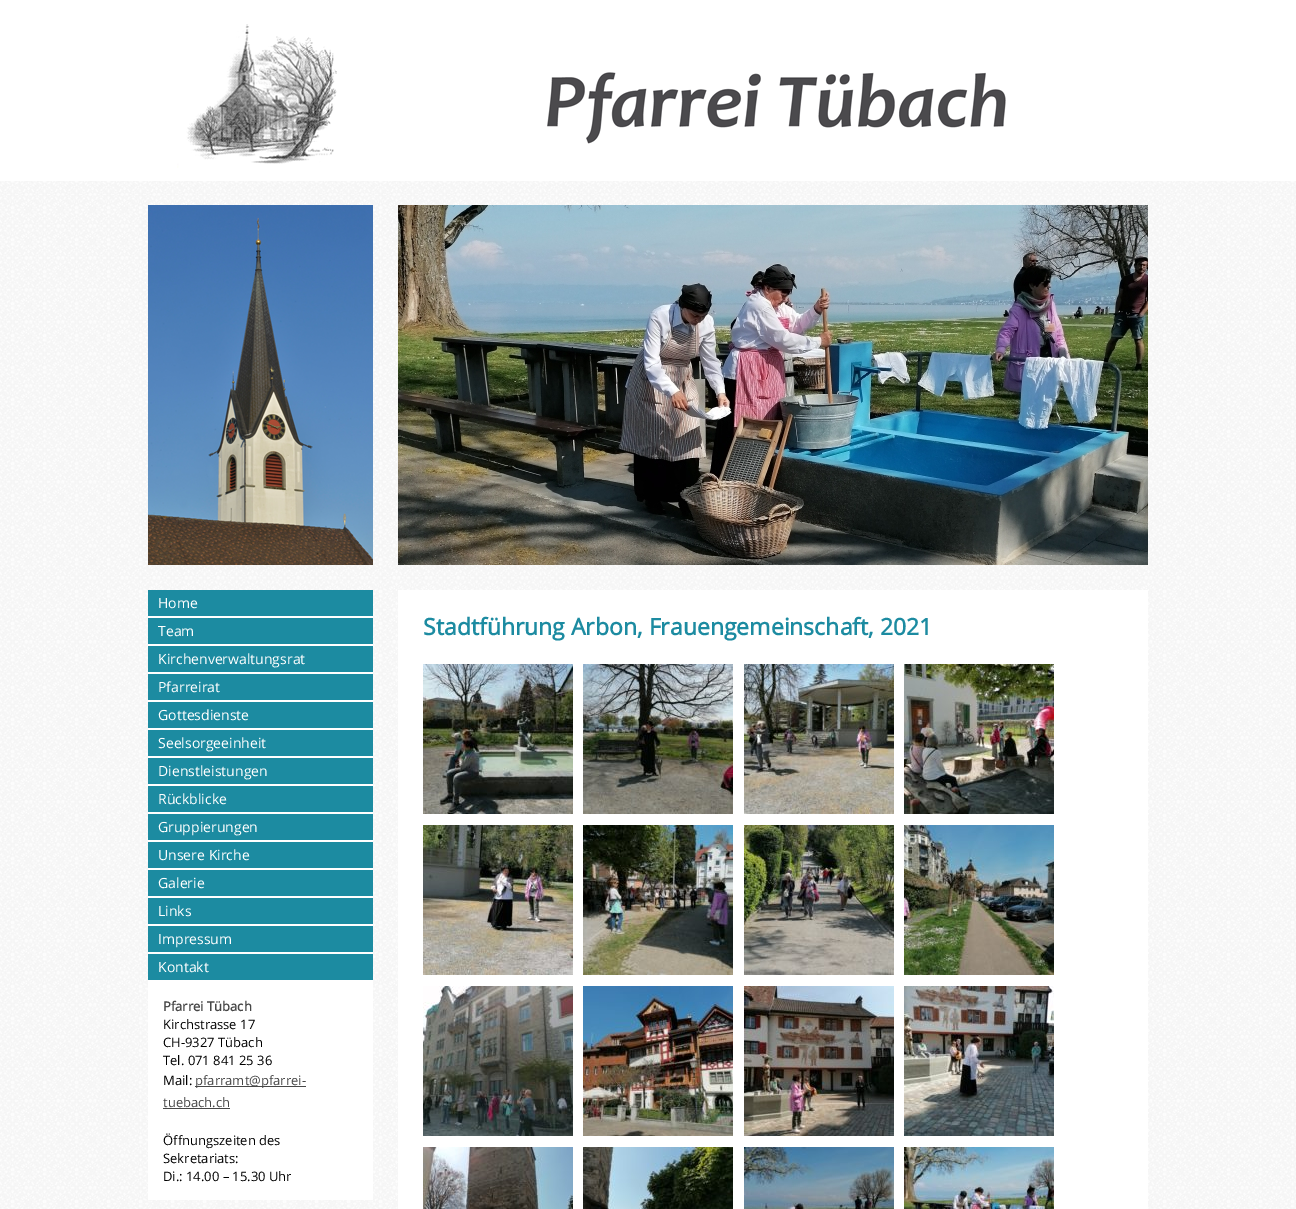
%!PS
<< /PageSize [1296 1209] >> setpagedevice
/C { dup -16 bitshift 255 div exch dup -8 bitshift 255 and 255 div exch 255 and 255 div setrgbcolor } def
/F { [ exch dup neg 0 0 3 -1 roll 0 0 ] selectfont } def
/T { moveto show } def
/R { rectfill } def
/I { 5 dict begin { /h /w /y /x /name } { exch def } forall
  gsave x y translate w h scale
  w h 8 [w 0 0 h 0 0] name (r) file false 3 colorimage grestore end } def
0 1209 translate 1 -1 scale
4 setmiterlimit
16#FFFFFF C
0 0 1296 1209 R
(1.rgb) 0 181 1296 1028 I
(2.rgb) 177 24 160 144 I
(3.rgb) 547 72 459 72 I
(4.rgb) 148 205 225 360 I
(5.rgb) 398 205 750 360 I
148 616 225 584 R
16#1C8BA1 C
148 590 225 26 R
/OpenSans-Regular 14 F
16#FFFFFF C
(Home) 158 608 T
16#1C8BA1 C
148 618 225 26 R
16#FFFFFF C
(Team) 158 636 T
16#1C8BA1 C
148 646 225 26 R
16#FFFFFF C
(Kirchenverwaltungsrat) 158 664 T
16#1C8BA1 C
148 674 225 26 R
16#FFFFFF C
(Pfarreirat) 158 692 T
16#1C8BA1 C
148 702 225 26 R
16#FFFFFF C
(Gottesdienste) 158 720 T
16#1C8BA1 C
148 730 225 26 R
16#FFFFFF C
(Seelsorgeeinheit) 158 748 T
16#1C8BA1 C
148 758 225 26 R
16#FFFFFF C
(Dienstleistungen) 158 776 T
16#1C8BA1 C
148 786 225 26 R
16#FFFFFF C
(Rückblicke) 158 804 T
16#1C8BA1 C
148 814 225 26 R
16#FFFFFF C
(Gruppierungen) 158 832 T
16#1C8BA1 C
148 842 225 26 R
16#FFFFFF C
(Unsere Kirche) 158 860 T
16#1C8BA1 C
148 870 225 26 R
16#FFFFFF C
(Galerie) 158 888 T
16#1C8BA1 C
148 898 225 26 R
16#FFFFFF C
(Links) 158 916 T
16#1C8BA1 C
148 926 225 26 R
16#FFFFFF C
(Impressum) 158 944 T
16#1C8BA1 C
148 954 225 26 R
16#FFFFFF C
(Kontakt) 158 972 T
/OpenSans-Bold 13 F
16#474747 C
(Pfarrei Tübach) 163 1011 T
/OpenSans-Regular 13 F
16#000000 C
(Kirchstrasse 17) 163 1029 T
(CH-9327 Tübach) 163 1047 T
(Tel. 071 841 25 36) 163 1065 T
(Mail:) 163 1085 T
16#474747 C
195 1086 111 1 R
(pfarramt@pfarrei-) 195 1085 T
(tuebach.ch) 163 1107 T
163 1108 67 1 R
16#000000 C
(Öffnungszeiten des) 163 1145 T
(Sekretariats:) 163 1163 T
(Di.: 14.00 – 15.30 Uhr) 163 1181 T
16#FFFFFF C
398 590 750 619 R
/OpenSans-Bold 23 F
16#1C8BA1 C
(Stadtführung Arbon, Frauengemeinschaft, 2021) 423 635 T
(6.rgb) 423 664 150 150 I
(7.rgb) 583 664 150 150 I
(8.rgb) 744 664 150 150 I
(9.rgb) 904 664 150 150 I
(10.rgb) 423 825 150 150 I
(11.rgb) 583 825 150 150 I
(12.rgb) 744 825 150 150 I
(13.rgb) 904 825 150 150 I
(14.rgb) 423 986 150 150 I
(15.rgb) 583 986 150 150 I
(16.rgb) 744 986 150 150 I
(17.rgb) 904 986 150 150 I
(18.rgb) 423 1147 150 62 I
(19.rgb) 583 1147 150 62 I
(20.rgb) 744 1147 150 62 I
(21.rgb) 904 1147 150 62 I
showpage
